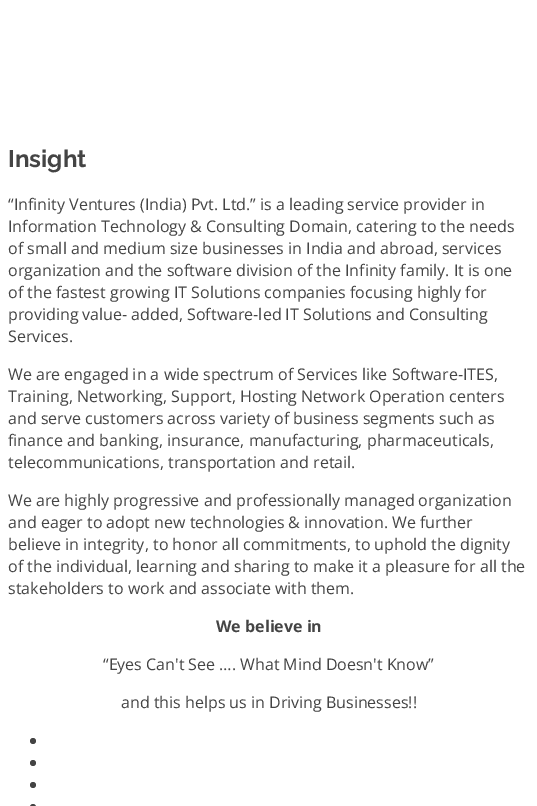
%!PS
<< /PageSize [537 806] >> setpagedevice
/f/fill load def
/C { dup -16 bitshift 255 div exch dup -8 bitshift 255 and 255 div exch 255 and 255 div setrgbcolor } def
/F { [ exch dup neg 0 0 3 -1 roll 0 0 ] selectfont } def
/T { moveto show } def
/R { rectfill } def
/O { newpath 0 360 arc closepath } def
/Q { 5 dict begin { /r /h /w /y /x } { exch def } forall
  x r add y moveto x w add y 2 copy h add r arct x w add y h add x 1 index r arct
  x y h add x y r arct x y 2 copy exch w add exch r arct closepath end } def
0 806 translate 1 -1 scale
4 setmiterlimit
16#FFFFFF C
0 0 537 806 R
/Raleway-Bold 24 F
16#444444 C
(Insight) 8 167 T
/OpenSans-Regular 16 F
(“Infinity Ventures \(India\) Pvt. Ltd.” is a leading service provider in) 8 210 T
(Information Technology & Consulting Domain, catering to the needs) 8 232 T
(of small and medium size businesses in India and abroad, services) 8 254 T
(organization and the software division of the Infinity family. It is one) 8 276 T
(of the fastest growing IT Solutions companies focusing highly for) 8 298 T
(providing value- added, Software-led IT Solutions and Consulting) 8 320 T
(Services.) 8 342 T
(We are engaged in a wide spectrum of Services like Software-ITES,) 8 380 T
(Training, Networking, Support, Hosting Network Operation centers) 8 402 T
(and serve customers across variety of business segments such as) 8 424 T
(finance and banking, insurance, manufacturing, pharmaceuticals,) 8 446 T
(telecommunications, transportation and retail.) 8 468 T
(We are highly progressive and professionally managed organization) 8 506 T
(and eager to adopt new technologies & innovation. We further) 8 528 T
(believe in integrity, to honor all commitments, to uphold the dignity) 8 550 T
(of the individual, learning and sharing to make it a pleasure for all the) 8 572 T
(stakeholders to work and associate with them.) 8 594 T
/OpenSans-Bold 16 F
(We believe in) 216 632 T
/OpenSans-Regular 16 F
(“Eyes Can't See …. What Mind Doesn't Know”) 103 670 T
(and this helps us in Driving Businesses!!) 121 708 T
33 741 3 O f
33 763 3 O f
33 785 3 O f
30 804 6 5 3 Q f
showpage
